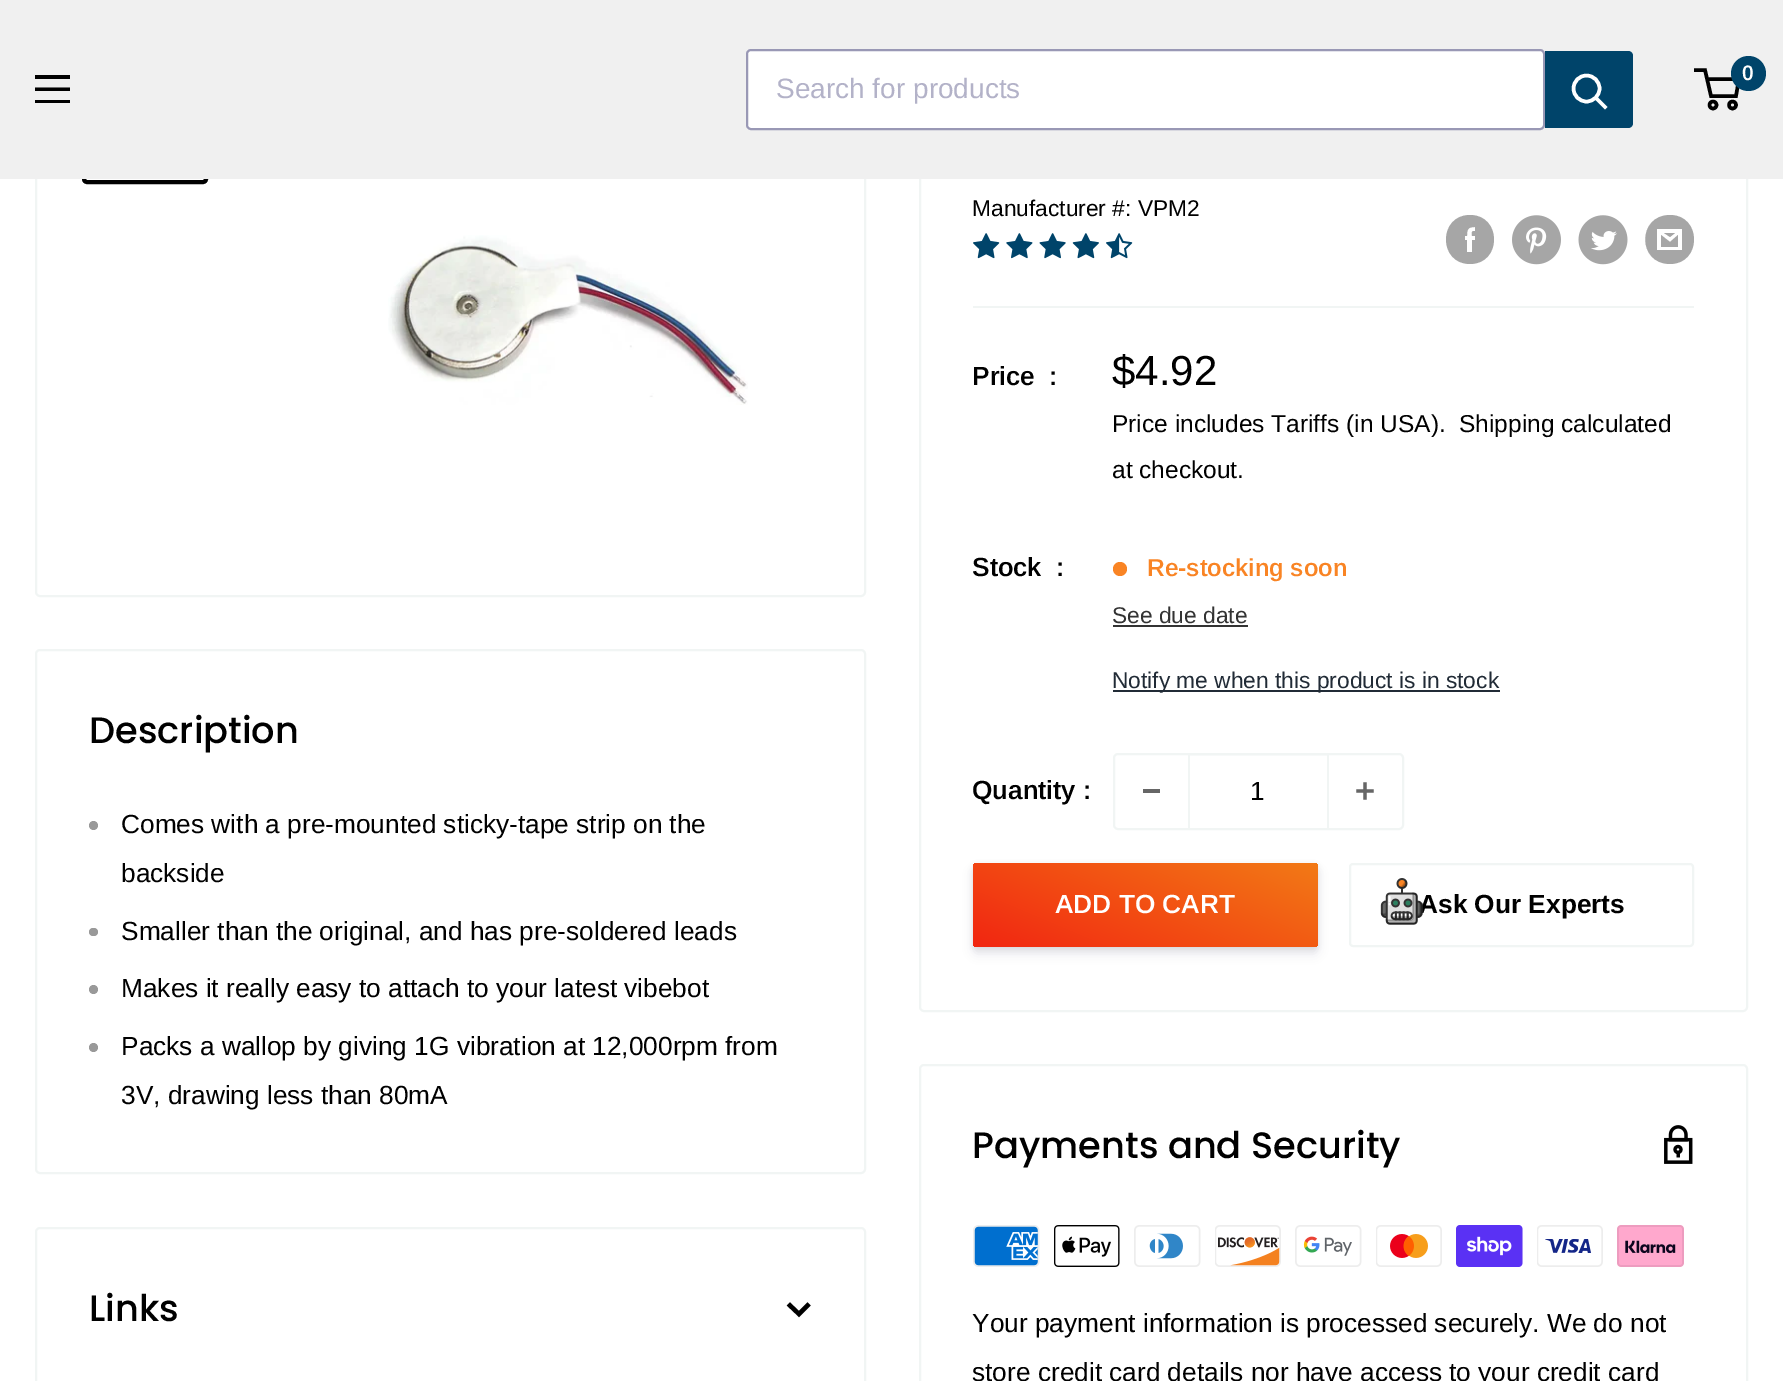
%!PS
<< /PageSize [1783 1381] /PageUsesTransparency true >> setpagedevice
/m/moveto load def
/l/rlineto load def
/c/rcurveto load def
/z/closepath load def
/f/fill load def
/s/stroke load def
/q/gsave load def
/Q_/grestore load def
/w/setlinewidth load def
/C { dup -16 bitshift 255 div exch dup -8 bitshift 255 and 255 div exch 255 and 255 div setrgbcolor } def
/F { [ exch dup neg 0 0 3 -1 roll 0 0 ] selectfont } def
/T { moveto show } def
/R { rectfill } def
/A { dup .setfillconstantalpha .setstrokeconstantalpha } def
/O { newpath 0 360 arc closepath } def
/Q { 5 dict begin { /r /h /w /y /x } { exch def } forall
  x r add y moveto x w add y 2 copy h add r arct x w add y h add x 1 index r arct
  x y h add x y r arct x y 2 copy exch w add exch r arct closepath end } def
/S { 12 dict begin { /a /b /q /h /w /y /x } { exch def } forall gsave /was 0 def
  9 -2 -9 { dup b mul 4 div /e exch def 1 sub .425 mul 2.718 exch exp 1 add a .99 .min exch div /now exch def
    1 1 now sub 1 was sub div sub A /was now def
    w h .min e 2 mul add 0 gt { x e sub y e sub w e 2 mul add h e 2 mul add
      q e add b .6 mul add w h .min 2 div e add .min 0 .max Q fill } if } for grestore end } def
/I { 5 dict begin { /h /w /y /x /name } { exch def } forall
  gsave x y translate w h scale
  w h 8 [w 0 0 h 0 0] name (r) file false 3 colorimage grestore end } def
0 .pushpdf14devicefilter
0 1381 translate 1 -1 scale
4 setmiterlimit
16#FFFFFF C
0 0 1783 1381 R
16#F1F5F4 C
2 w
36 12 829 584 4 Q s
16#000000 C
4 w
84 60 122 122 3 Q s
16#F1F5F4 C
2 w
920 12 827 999 4 Q s
16#F0F0F0 C
0 0 1783 179 R
16#000000 C
3.5 w
1713 105 3.5 O s
1732.5 105 3.5 O s
1707 79 m 32 0 l -3 17 l -25 0 l -6 -26 l -11 0 l s
16#00446A C
1748.5 73.5 17.5 O f
/Arimo-SemiBold 21 F
16#FFFFFF C
(0) 1742 80 T
16#000000 C
35 100 m 35 0 l 0 3 l -35 0 l z 35 75 m 35 0 l 0 4 l -35 0 l z 35 87.5 m 35 0 l 0 3.5 l -35 0 l z eofill
16#FFFFFF C
746 51 887 77 5 Q f
746 49 799 81 5 Q f
0.8 A
16#807EA3 C
2 w
747 50 797 79 4 Q s
/Arimo-Regular 28 F
1 A
16#B3B2C8 C
(Search for products) 776 98 T
16#00446A C
1545 51 m 83 0 l 3 0 5 2 5 5 c 0 67 l 0 3 -2 5 -5 5 c -83 0 l z f
16#FFFFFF C
3.5 w
2 setlinecap
1605 107 m -9 -9 l s
0 setlinecap
1586.5 88.5 13 O s
(1.rgb) 388 235 360 170 I
/Arimo-Regular 22.75 F
16#000000 C
(Manufacturer #: VPM2) 972 216 T
(2.rgb) 973 233 27 26 I
(3.rgb) 1006 233 27 26 I
(4.rgb) 1039 233 27 26 I
(5.rgb) 1072 233 27 26 I
(6.rgb) 1106 233 27 26 I
16#A6A6A6 C
1470 264 m -32 0 -32 -49 0 -49 c 32 0 32 49 0 49 c z 1475 236 m -3 0 l 0 -4 -1 -5 3 -5 c 0 -4 l -7 0 -8 2 -8 9 c -2 0 l 0 4 l 2 0 l 0 12 l 5 0 l 0 -12 l 3 0 l z eofill
(7.rgb) 1512 215 49 50 I
(8.rgb) 1578 215 50 50 I
1670 264 m -33 0 -33 -49 0 -49 c 32 0 32 49 0 49 c z 1664 233 m 11 0 l -5 4 l z 1678 235 m 0 12 l -17 0 l 0 -12 l 9 7 l z 1682 229 m -25 0 l 0 21 l 25 0 l z f
16#F1F5F4 C
973 306 721 2 R
/Arimo-SemiBold 26.25 F
16#000000 C
(Price) 972 385 T
(:) 1049 385 T
/Arimo-Regular 42 F
($4.92) 1112 385 T
/Arimo-Regular 24.5 F
(Price includes Tariffs \(in USA\).) 1112 432 T
(Shipping calculated) 1459 432 T
(at checkout.) 1112 478 T
/Arimo-SemiBold 26.25 F
(Stock) 972 576 T
(:) 1056 576 T
16#F98424 C
1120 569 7 O f
/Arimo-SemiBold 24.5 F
(Re-stocking soon) 1147 576 T
/Arimo-Regular 22.75 F
16#333333 C
(See due date) 1112 623 T
1113 625 135 2 R
16#212B36 C
1113 690 387 2 R
(Notify me when this product is in stock) 1112 688 T
/Arimo-SemiBold 26.25 F
16#000000 C
(Quantity :) 972 799 T
16#F1F5F4 C
2 w
1114 754 289 75 4 Q s
16#666666 C
1143 789 17 4 R
0.4 A
16#F1F5F4 C
1190 755 137 1 R
1 A
1327 754 2 74 R
1188 754 2 74 R
/Arimo-Regular 26.25 F
16#000000 C
(1) 1250 800 T
(9.rgb) 1356 782 18 18 I
973 865 345 84 4 2.5 .08 S
16#32325D C
973 870 345 84 4 5 .11 S
q 973 863 345 84 4 Q clip newpath
<< /ShadingType 2 /ColorSpace /DeviceRGB /Coords [1385 745 1250 1064] /Extend [true true] /Function << /FunctionType 3 /Domain [0 1] /Functions [<< /FunctionType 2 /Domain [0 1] /C0 [.961 .686 .098] /C1 [.945 .153 .067] /N 1 >> << /FunctionType 2 /Domain [0 1] /C0 [.945 .153 .067] /C1 [.945 .153 .067] /N 1 >>] /Bounds [.99] /Encode [0 1 0 1] >> >> shfill Q_
/Arimo-SemiBold 26.25 F
16#FFFFFF C
(ADD TO CART) 1055 913 T
16#F1F5F4 C
1350 864 343 82 3 Q s
/Arimo-Bold 26.25 F
16#000000 C
(Ask Our Experts) 1419 913 T
(10.rgb) 1380 878 43 47 I
16#F1F5F4 C
920 1065 827 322 4 Q s
/Poppins-Medium 36.75 F
16#000000 C
(Payments and Security) 972 1158 T
(11.rgb) 1664 1125 29 39 I
(12.rgb) 973 1225 67 42 I
(13.rgb) 1054 1225 66 42 I
(14.rgb) 1134 1225 67 42 I
(15.rgb) 1215 1225 66 42 I
(16.rgb) 1295 1225 67 42 I
(17.rgb) 1376 1225 66 42 I
(18.rgb) 1456 1225 67 42 I
(19.rgb) 1537 1225 66 42 I
(20.rgb) 1617 1225 67 42 I
/Arimo-Regular 26.25 F
(Your payment information is processed securely. We do not) 972 1332 T
(store credit card details nor have access to your credit card) 972 1381 T
16#F1F5F4 C
36 650 829 523 4 Q s
/Poppins-Medium 36.75 F
16#000000 C
(Description) 89 743 T
16#999999 C
93.5 825.5 4.5 O f
/Arimo-Regular 26.25 F
16#000000 C
(Comes with a pre-mounted sticky-tape strip on the) 121 833 T
(backside) 121 882 T
16#999999 C
89 928 9 8 4 Q f
16#000000 C
(Smaller than the original, and has pre-soldered leads) 121 940 T
16#999999 C
93.5 989.5 4.5 O f
16#000000 C
(Makes it really easy to attach to your latest vibebot) 121 997 T
16#999999 C
93.5 1047.5 4.5 O f
16#000000 C
(Packs a wallop by giving 1G vibration at 12,000rpm from) 121 1055 T
(3V, drawing less than 80mA) 121 1104 T
16#F1F5F4 C
36 1228 829 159 4 Q s
/Poppins-Medium 36.75 F
16#000000 C
(Links) 89 1321 T
4.4 w
2 setlinecap
807.5 1305.5 m -8.5 8.5 l -9 -8.5 l s
.poppdf14devicefilter showpage
